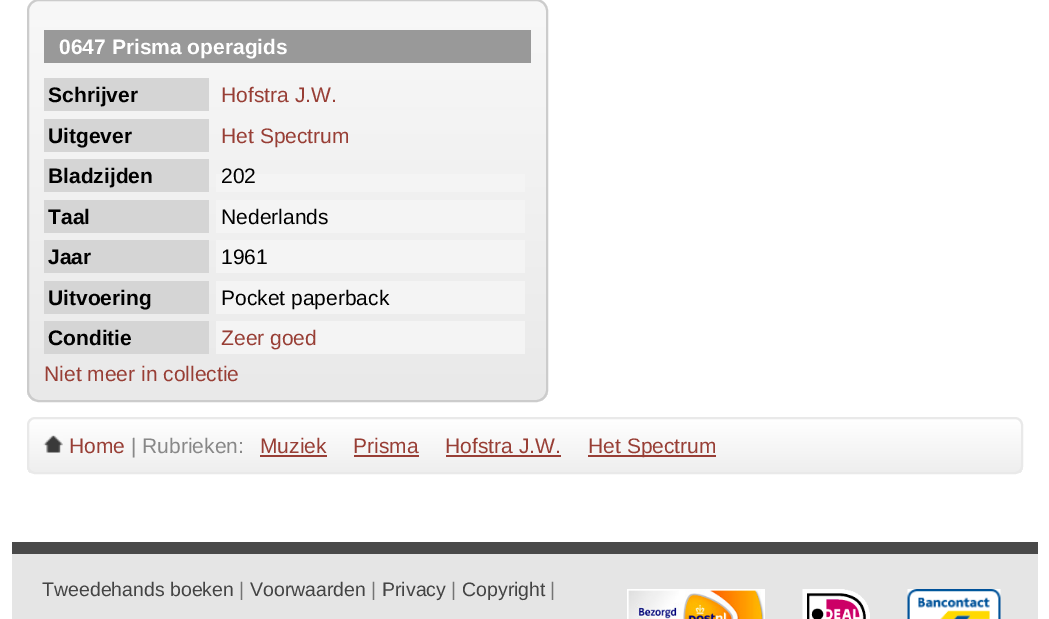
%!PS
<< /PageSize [1049 619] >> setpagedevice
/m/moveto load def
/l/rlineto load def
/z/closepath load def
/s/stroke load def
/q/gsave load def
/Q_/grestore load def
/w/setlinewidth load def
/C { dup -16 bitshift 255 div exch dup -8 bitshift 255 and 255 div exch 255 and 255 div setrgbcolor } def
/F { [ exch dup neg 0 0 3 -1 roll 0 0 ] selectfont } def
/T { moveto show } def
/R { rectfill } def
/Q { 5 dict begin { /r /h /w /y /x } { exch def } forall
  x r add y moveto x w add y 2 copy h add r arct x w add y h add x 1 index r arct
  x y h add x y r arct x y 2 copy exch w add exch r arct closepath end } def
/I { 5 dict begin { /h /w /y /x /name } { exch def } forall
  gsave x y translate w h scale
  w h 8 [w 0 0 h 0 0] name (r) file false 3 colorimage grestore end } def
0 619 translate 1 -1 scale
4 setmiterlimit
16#FFFFFF C
0 0 1049 619 R
q
27 -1 521 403 12 Q clip newpath
q 27 0 m 521 0 l 0 401 l -521 0 l z clip newpath
<< /ShadingType 2 /ColorSpace /DeviceRGB /Coords [29 0 29 401] /Extend [true true] /Function << /FunctionType 2 /Domain [0 1] /C0 [.973 .973 .973] /C1 [.914 .914 .914] /N 1 >> >> shfill Q_
Q_
16#CCCCCC C
2 w
28 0 519 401 11 Q s
16#999999 C
44 30 487 33 R
/LiberationSans-Bold 21 F
16#FFFFFF C
(0647 Prisma operagids) 59 54 T
16#D5D5D5 C
44 78 165 33 R
16#000000 C
(Schrijver) 48 102 T
/LiberationSans-Regular 21 F
16#983E35 C
(Hofstra J.W.) 221 102 T
16#D5D5D5 C
44 119 165 33 R
/LiberationSans-Bold 21 F
16#000000 C
(Uitgever) 48 143 T
/LiberationSans-Regular 21 F
16#983E35 C
(Het Spectrum) 221 143 T
16#D5D5D5 C
44 159 165 33 R
/LiberationSans-Bold 21 F
16#000000 C
(Bladzijden) 48 183 T
16#F4F4F4 C
216 174 309 18 R
/LiberationSans-Regular 21 F
16#000000 C
(202) 221 183 T
16#D5D5D5 C
44 200 165 33 R
/LiberationSans-Bold 21 F
16#000000 C
(Taal) 48 224 T
16#F4F4F4 C
216 200 309 33 R
/LiberationSans-Regular 21 F
16#000000 C
(Nederlands) 221 224 T
16#D5D5D5 C
44 240 165 33 R
/LiberationSans-Bold 21 F
16#000000 C
(Jaar) 48 264 T
16#F4F4F4 C
216 240 309 33 R
/LiberationSans-Regular 21 F
16#000000 C
(1961) 221 264 T
16#D5D5D5 C
44 281 165 33 R
/LiberationSans-Bold 21 F
16#000000 C
(Uitvoering) 48 305 T
16#F4F4F4 C
216 281 309 33 R
/LiberationSans-Regular 21 F
16#000000 C
(Pocket paperback) 221 305 T
16#D5D5D5 C
44 321 165 33 R
/LiberationSans-Bold 21 F
16#000000 C
(Conditie) 48 345 T
16#F4F4F4 C
216 321 309 33 R
/LiberationSans-Regular 21 F
16#983E35 C
(Zeer goed) 221 345 T
(Niet meer in collectie) 44 381 T
q
27 417 996 57 8 Q clip newpath
q 27 419 m 996 0 l 0 54 l -996 0 l z clip newpath
<< /ShadingType 2 /ColorSpace /DeviceRGB /Coords [29 419 29 473] /Extend [true true] /Function << /FunctionType 2 /Domain [0 1] /C0 [1 1 1] /C1 [.933 .933 .933] /N 1 >> >> shfill Q_
Q_
16#E9E9E9 C
28 418 994 55 7 Q s
(1.rgb) 43 435 20 18 I
16#983E35 C
(Home) 69 453 T
16#888888 C
(| Rubrieken:) 131 453 T
16#983E35 C
(Muziek) 260 453 T
260 455 67 2 R
(Prisma) 353 453 T
354 455 65 2 R
(Hofstra J.W.) 445 453 T
446 455 115 2 R
588 455 128 2 R
(Het Spectrum) 588 453 T
16#E5E5E5 C
12 554 1026 65 R
16#494949 C
12 542 1026 12 R
/LiberationSans-Regular 19.5 F
16#444444 C
(Tweedehands boeken) 42 596 T
16#747474 C
(|) 239 596 T
16#444444 C
(Voorwaarden) 250 596 T
16#747474 C
(|) 371 596 T
16#444444 C
(Privacy) 382 596 T
16#747474 C
(|) 451 596 T
16#444444 C
(Copyright) 462 596 T
16#747474 C
(|) 550 596 T
(2.rgb) 627 589 138 30 I
(3.rgb) 802 589 68 30 I
(4.rgb) 907 589 94 30 I
showpage
